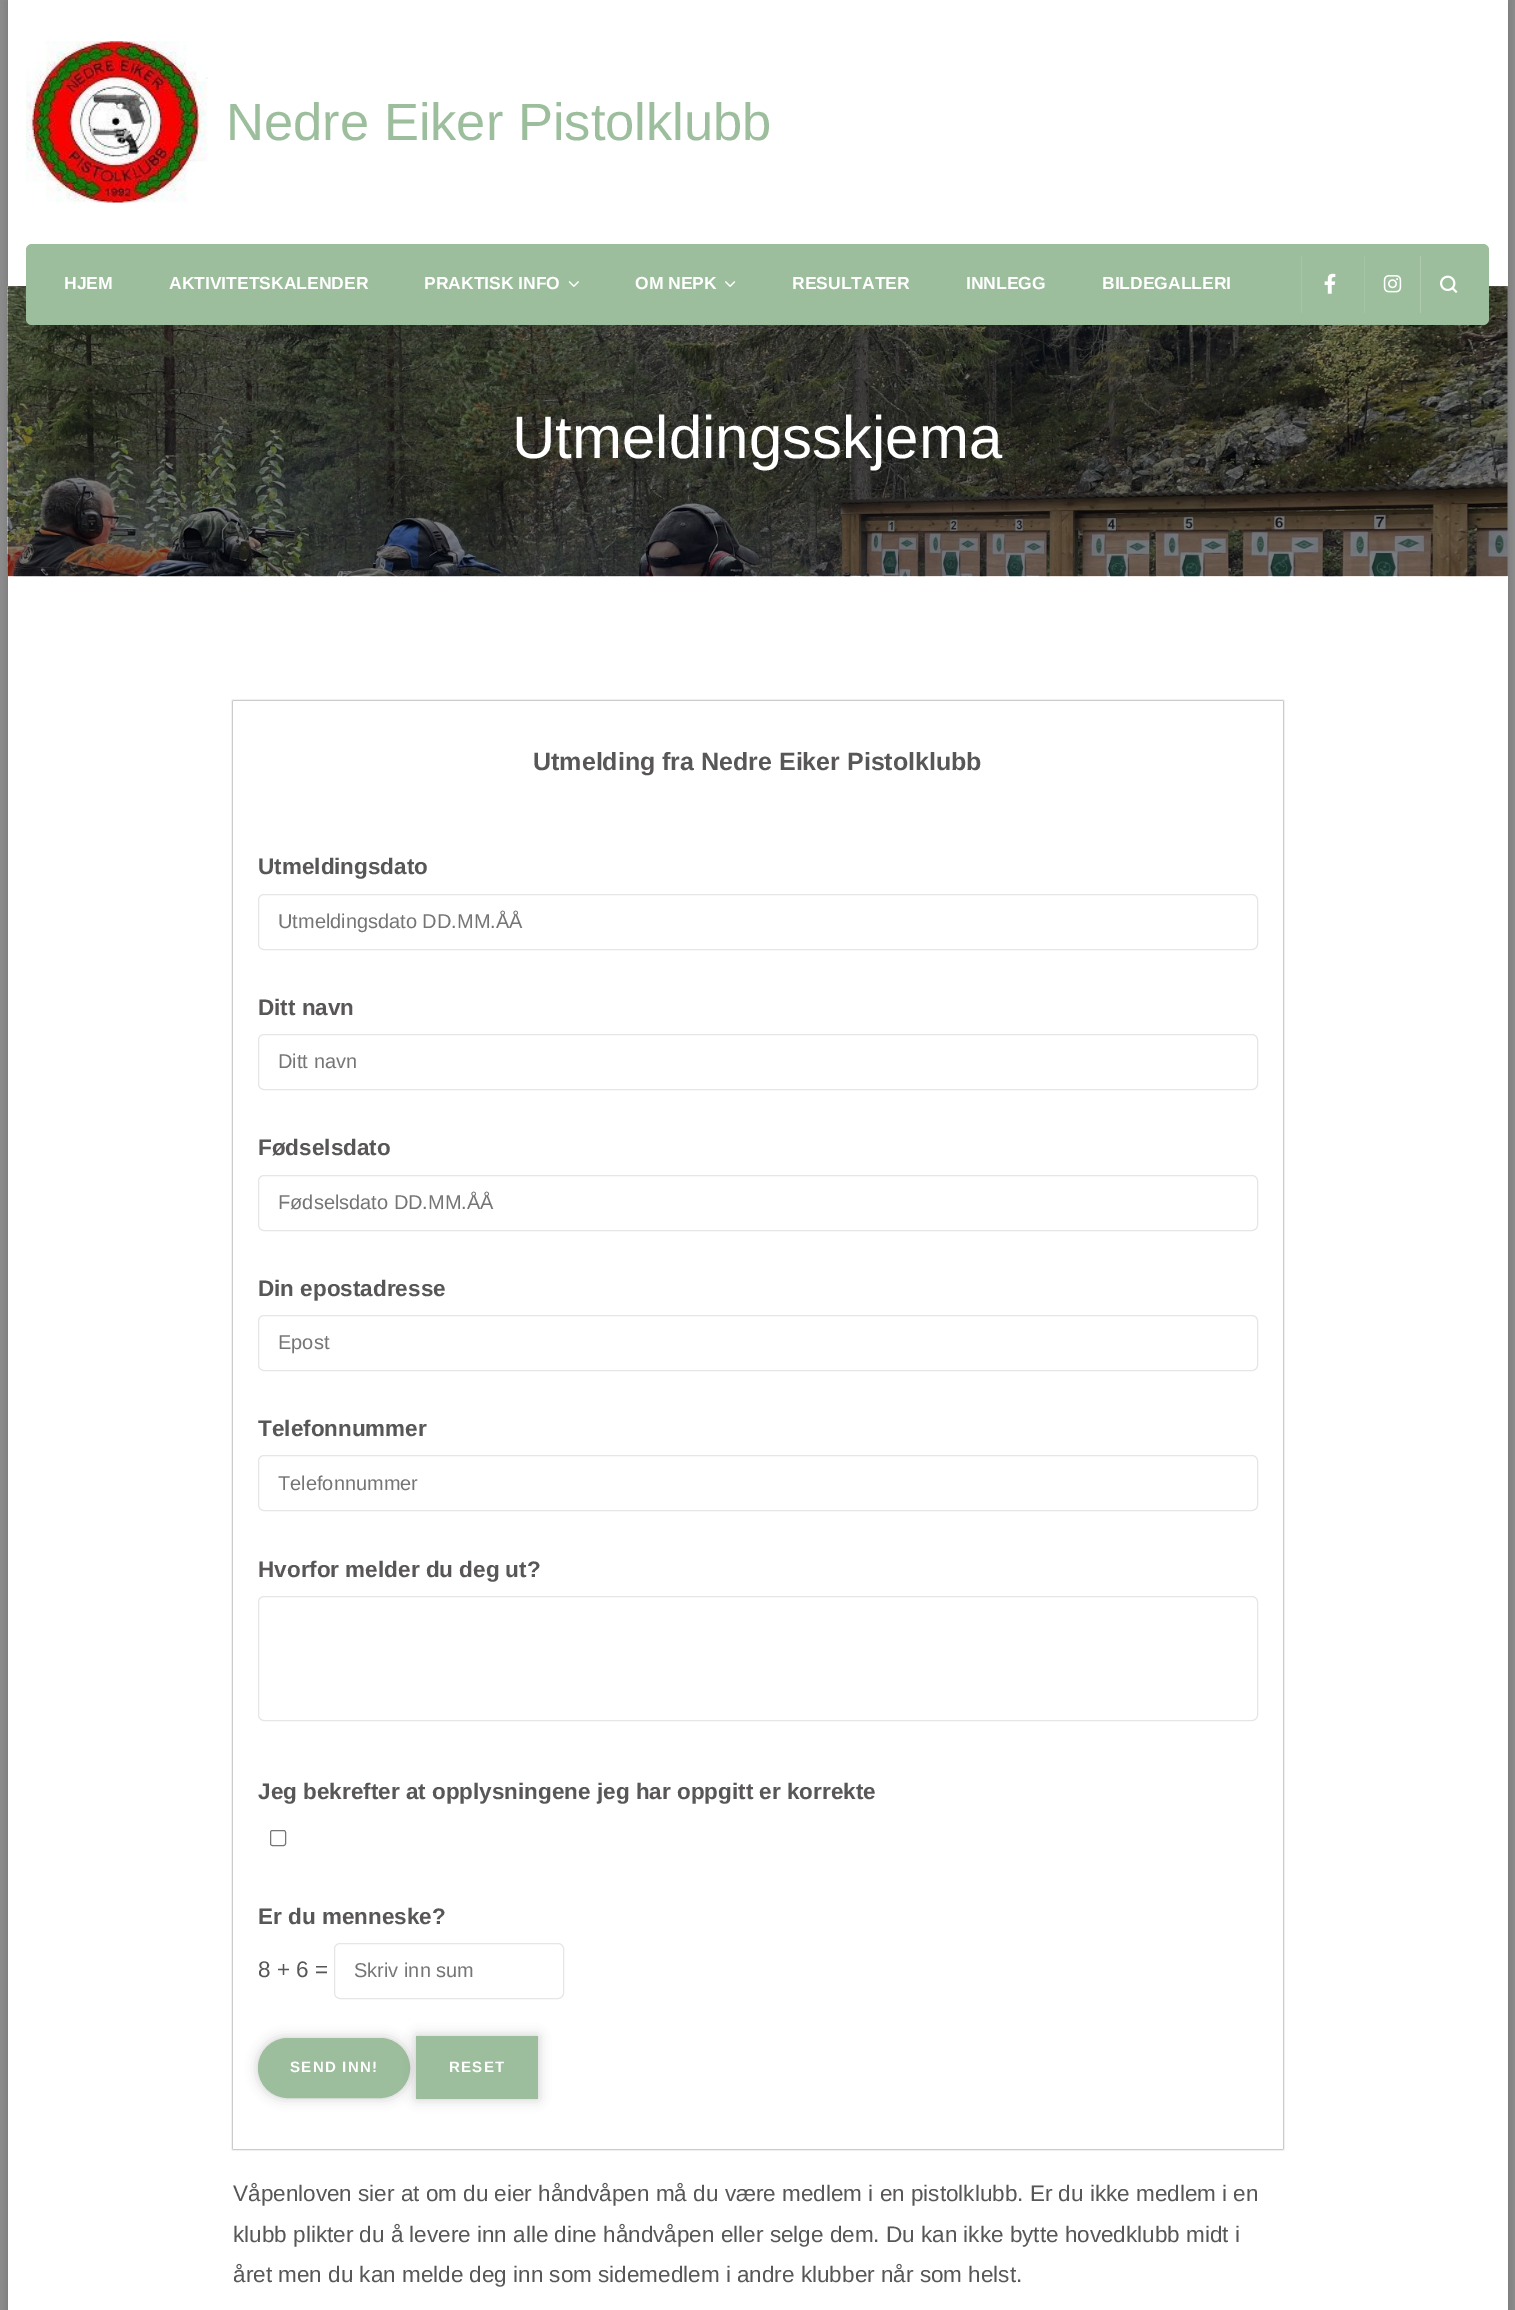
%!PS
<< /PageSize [1515 2310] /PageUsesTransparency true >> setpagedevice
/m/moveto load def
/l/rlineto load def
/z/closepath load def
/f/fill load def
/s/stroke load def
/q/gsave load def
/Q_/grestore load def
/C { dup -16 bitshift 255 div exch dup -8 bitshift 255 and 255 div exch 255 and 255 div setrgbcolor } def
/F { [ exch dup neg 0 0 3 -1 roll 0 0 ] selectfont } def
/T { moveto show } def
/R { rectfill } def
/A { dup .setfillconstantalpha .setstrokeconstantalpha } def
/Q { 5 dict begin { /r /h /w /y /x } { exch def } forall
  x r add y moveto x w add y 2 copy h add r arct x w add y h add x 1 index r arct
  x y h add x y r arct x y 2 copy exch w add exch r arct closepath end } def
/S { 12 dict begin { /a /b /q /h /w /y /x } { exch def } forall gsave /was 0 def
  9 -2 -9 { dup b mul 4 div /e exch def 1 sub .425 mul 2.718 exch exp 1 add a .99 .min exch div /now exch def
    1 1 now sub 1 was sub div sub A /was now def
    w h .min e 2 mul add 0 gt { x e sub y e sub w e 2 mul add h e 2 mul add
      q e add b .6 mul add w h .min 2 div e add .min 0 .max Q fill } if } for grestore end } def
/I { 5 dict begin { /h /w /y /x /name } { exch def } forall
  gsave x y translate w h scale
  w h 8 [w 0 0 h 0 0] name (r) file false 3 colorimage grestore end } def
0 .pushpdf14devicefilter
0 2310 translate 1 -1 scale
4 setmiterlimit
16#8E8E8E C
0 0 1515 2310 R
16#000000 C
8 0 1500 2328 0 6 .2 S
16#FFFFFF C
8 0 1500 2310 R
(1.rgb) 26 41 182 162 I
/LiberationSans-Regular 52.5 F
16#9CBE9C C
(Nedre Eiker Pistolklubb) 226 140 T
(7.rgb) 7 286 1501 291 I
0.5 A
16#000000 C
8 286 1500 290 R
1 A
16#9CBE9C C
26 244 1463 81 6 Q f
/LiberationSans-Bold 17.5 F
16#FFFFFF C
(HJEM) 64 289 T
(AKTIVITETSKALENDER) 169 289 T
(PRAKTISK INFO) 424 289 T
(2.rgb) 568 281 11 6 I
(OM NEPK) 635 289 T
(3.rgb) 725 281 11 6 I
(RESULTATER) 792 289 T
(INNLEGG) 966 289 T
(BILDEGALLERI) 1102 289 T
16#A6C5A6 C
1301 256 1 57 R
(4.rgb) 1324 273 12 21 I
1364 256 1 57 R
(5.rgb) 1383 275 19 18 I
16#B0CBB0 C
1420 256 1 57 R
(6.rgb) 1440 275 18 18 I
/LiberationSans-Regular 60 F
16#FFFFFF C
(Utmeldingsskjema) 512 458 T
q
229 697 m 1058 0 l 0 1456 l -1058 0 l z 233 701 m 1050 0 l 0 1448 l -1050 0 l z eoclip newpath
16#585656 C
233 701 1050 1448 0 1 1 S
Q_
/LiberationSans-Bold 25 F
16#585656 C
(Utmelding fra Nedre Eiker Pistolklubb) 533 770 T
/LiberationSans-Bold 22.5 F
(Utmeldingsdato) 258 874 T
16#E6E6E6 C
258.5 894.5 999 55 5.5 Q s
/LiberationSans-Regular 20 F
16#757575 C
(Utmeldingsdato DD.MM.ÅÅ) 278 928 T
/LiberationSans-Bold 22.5 F
16#585656 C
(Ditt navn) 258 1015 T
16#E6E6E6 C
258.5 1034.5 999 55 5.5 Q s
/LiberationSans-Regular 20 F
16#757575 C
(Ditt navn) 278 1068 T
/LiberationSans-Bold 22.5 F
16#585656 C
(Fødselsdato) 258 1155 T
16#E6E6E6 C
258.5 1175.5 999 55 5.5 Q s
/LiberationSans-Regular 20 F
16#757575 C
(Fødselsdato DD.MM.ÅÅ) 278 1209 T
/LiberationSans-Bold 22.5 F
16#585656 C
(Din epostadresse) 258 1296 T
16#E6E6E6 C
258.5 1315.5 999 55 5.5 Q s
/LiberationSans-Regular 20 F
16#757575 C
(Epost) 278 1349 T
/LiberationSans-Bold 22.5 F
16#585656 C
(Telefonnummer) 258 1436 T
16#E6E6E6 C
258.5 1455.5 999 55 5.5 Q s
/LiberationSans-Regular 20 F
16#757575 C
(Telefonnummer) 278 1490 T
/LiberationSans-Bold 22.5 F
16#585656 C
(Hvorfor melder du deg ut?) 258 1577 T
16#E6E6E6 C
258.5 1596.5 999 124 5.5 Q s
16#585656 C
(Jeg bekrefter at opplysningene jeg har oppgitt er korrekte) 258 1799 T
16#767676 C
270.5 1830.5 15 15 2 Q s
16#585656 C
(Er du menneske?) 258 1924 T
/LiberationSans-Regular 22.5 F
(8 + 6 =) 258 1977 T
16#E6E6E6 C
334.5 1943.5 229 55 5.5 Q s
/LiberationSans-Regular 20 F
16#757575 C
(Skriv inn sum) 354 1977 T
16#000000 C
258 2038 152 60 30 6 .2 S
16#9CBE9C C
258.5 2038.5 151 59 29.5 Q q f Q_
s
/LiberationSans-Bold 15 F
16#FFFFFF C
290 2072 m 1.25 0 (SEND INN!) ashow
16#000000 C
416 2036 122 63 0 6 .2 S
16#9CBE9C C
416 2036 122 63 R
16#FFFFFF C
449 2072 m 1.25 0 (RESET) ashow
/LiberationSans-Regular 22.5 F
16#585656 C
(Våpenloven sier at om du eier håndvåpen må du være medlem i en pistolklubb. Er du ikke medlem i en) 233 2201 T
(klubb plikter du å levere inn alle dine håndvåpen eller selge dem. Du kan ikke bytte hovedklubb midt i) 233 2242 T
(året men du kan melde deg inn som sidemedlem i andre klubber når som helst.) 233 2282 T
.poppdf14devicefilter showpage
